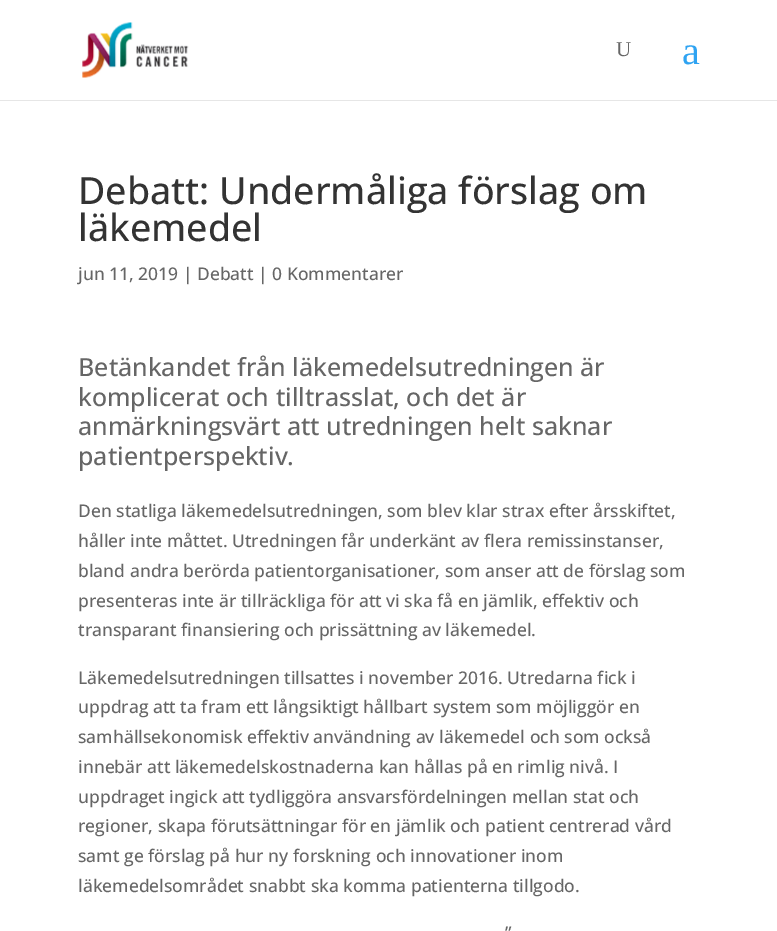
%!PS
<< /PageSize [777 931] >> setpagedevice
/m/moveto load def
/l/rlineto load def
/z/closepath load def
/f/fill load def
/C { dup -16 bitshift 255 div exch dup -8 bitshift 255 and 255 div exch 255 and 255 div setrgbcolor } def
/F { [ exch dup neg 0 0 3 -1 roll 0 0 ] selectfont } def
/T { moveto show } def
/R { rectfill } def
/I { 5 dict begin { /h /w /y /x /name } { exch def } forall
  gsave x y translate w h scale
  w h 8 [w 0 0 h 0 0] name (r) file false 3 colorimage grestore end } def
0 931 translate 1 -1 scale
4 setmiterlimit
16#FFFFFF C
0 0 777 931 R
16#E6E6E6 C
0 100 m 0 1 l 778 0 l 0 -100 l 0 99 l z f
(1.rgb) 82 22 107 56 I
/LiberationSerif-Regular 21 F
16#666666 C
(U) 616 56 T
/LiberationSerif-Regular 40 F
16#2EA3F2 C
(a) 682 64 T
/OpenSans-Medium 37.5 F
16#333333 C
(Debatt: Undermåliga förslag om) 78 204 T
(läkemedel) 78 241 T
/OpenSans-Medium 17.5 F
16#666666 C
(jun 11, 2019 | Debatt | 0 Kommentarer) 78 280 T
/OpenSans-Medium 25 F
(Betänkandet från läkemedelsutredningen är) 78 376 T
(komplicerat och tilltrasslat, och det är) 78 406 T
(anmärkningsvärt att utredningen helt saknar) 78 435 T
(patientperspektiv.) 78 465 T
/OpenSans-Medium 17.5 F
(Den statliga läkemedelsutredningen, som blev klar strax efter årsskiftet,) 78 517 T
(håller inte måttet. Utredningen får underkänt av flera remissinstanser,) 78 547 T
(bland andra berörda patientorganisationer, som anser att de förslag som) 78 577 T
(presenteras inte är tillräckliga för att vi ska få en jämlik, effektiv och) 78 607 T
(transparant finansiering och prissättning av läkemedel.) 78 636 T
(Läkemedelsutredningen tillsattes i november 2016. Utredarna fick i) 78 684 T
(uppdrag att ta fram ett långsiktigt hållbart system som möjliggör en) 78 713 T
(samhällsekonomisk effektiv användning av läkemedel och som också) 78 743 T
(innebär att läkemedelskostnaderna kan hållas på en rimlig nivå. I) 78 773 T
(uppdraget ingick att tydliggöra ansvarsfördelningen mellan stat och) 78 803 T
(regioner, skapa förutsättningar för en jämlik och patient centrerad vård) 78 832 T
(samt ge förslag på hur ny forskning och innovationer inom) 78 862 T
(läkemedelsområdet snabbt ska komma patienterna tillgodo.) 78 892 T
(”) 505 939 T
showpage
